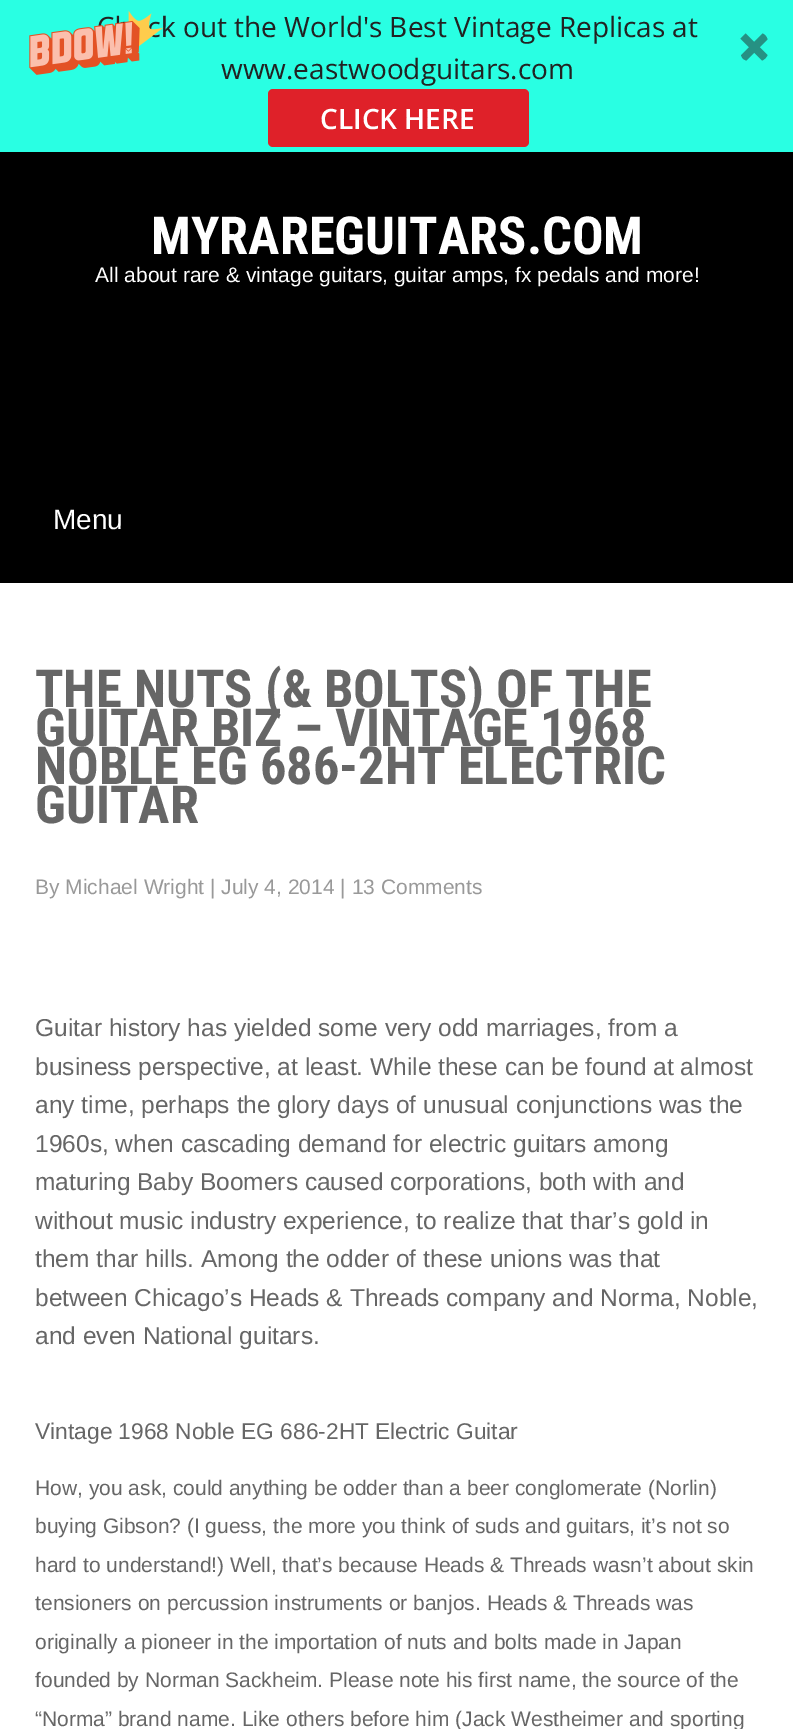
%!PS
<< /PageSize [793 1729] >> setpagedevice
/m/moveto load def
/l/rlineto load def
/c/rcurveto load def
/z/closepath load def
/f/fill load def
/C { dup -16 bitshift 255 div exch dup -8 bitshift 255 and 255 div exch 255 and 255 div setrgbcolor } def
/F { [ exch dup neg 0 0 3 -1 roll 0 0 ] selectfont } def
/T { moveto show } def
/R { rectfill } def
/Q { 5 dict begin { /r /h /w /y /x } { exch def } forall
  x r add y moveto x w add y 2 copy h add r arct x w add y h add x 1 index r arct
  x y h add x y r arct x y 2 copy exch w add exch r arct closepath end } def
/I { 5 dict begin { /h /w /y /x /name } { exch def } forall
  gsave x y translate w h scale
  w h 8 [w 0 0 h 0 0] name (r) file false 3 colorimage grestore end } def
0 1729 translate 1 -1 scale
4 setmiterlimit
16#FFFFFF C
0 0 793 1729 R
16#29FFE3 C
0 0 793 152 R
/OpenSans-Regular 28 F
16#222222 C
(k out the World's Best Vintage Replicas at) 161 37 T
(1.rgb) 29 10 135 65 I
(www.eastwoodguitars.com) 221 79 T
16#269183 C
742 57.5 m -1 -2 l 21.5 -22 l 2.5 1 4.5 3.5 5 6 c -21 21 l -2 -.5 -3.5 -1.5 -4.5 -3 c z f
745 34 m .5 -.5 l 22 21.5 l -1 2.5 -3 4.5 -5.5 5.5 c -21.5 -22 l z f
16#DF2129 C
268 89 261 58 5 Q f
/OpenSans-SemiBold 28 F
16#FFFFFF C
(CLICK HERE) 320 129 T
16#000000 C
0 152 793 431 R
/RobotoCondensed-Bold 52.5 F
16#FFFFFF C
(MYRAREGUITARS.COM) 151 254 T
/LiberationSans-Regular 21 F
(All about rare & vintage guitars, guitar amps, fx pedals and more!) 95 282 T
/LiberationSans-Regular 28 F
(Menu) 53 529 T
/RobotoCondensed-Bold 52.5 F
16#666666 C
(THE NUTS \(& BOLTS\) OF THE) 35 707 T
(GUITAR BIZ – VINTAGE 1968) 35 746 T
(NOBLE EG 686-2HT ELECTRIC) 35 784 T
(GUITAR) 35 823 T
/LiberationSans-Regular 21 F
16#999999 C
(By Michael Wright | July 4, 2014 | 13 Comments) 35 894 T
/LiberationSans-Regular 24.5 F
16#666666 C
(Guitar history has yielded some very odd marriages, from a) 35 1036 T
(business perspective, at least. While these can be found at almost) 35 1075 T
(any time, perhaps the glory days of unusual conjunctions was the) 35 1113 T
(1960s, when cascading demand for electric guitars among) 35 1152 T
(maturing Baby Boomers caused corporations, both with and) 35 1190 T
(without music industry experience, to realize that thar’s gold in) 35 1229 T
(them thar hills. Among the odder of these unions was that) 35 1267 T
(between Chicago’s Heads & Threads company and Norma, Noble,) 35 1306 T
(and even National guitars.) 35 1344 T
/LiberationSans-Regular 22.75 F
(Vintage 1968 Noble EG 686-2HT Electric Guitar) 35 1439 T
/LiberationSans-Regular 21 F
(How, you ask, could anything be odder than a beer conglomerate \(Norlin\)) 35 1495 T
(buying Gibson? \(I guess, the more you think of suds and guitars, it’s not so) 35 1533 T
(hard to understand!\) Well, that’s because Heads & Threads wasn’t about skin) 35 1572 T
(tensioners on percussion instruments or banjos. Heads & Threads was) 35 1610 T
(originally a pioneer in the importation of nuts and bolts made in Japan) 35 1649 T
(founded by Norman Sackheim. Please note his first name, the source of the) 35 1687 T
(“Norma” brand name. Like others before him \(Jack Westheimer and sporting) 35 1726 T
showpage
